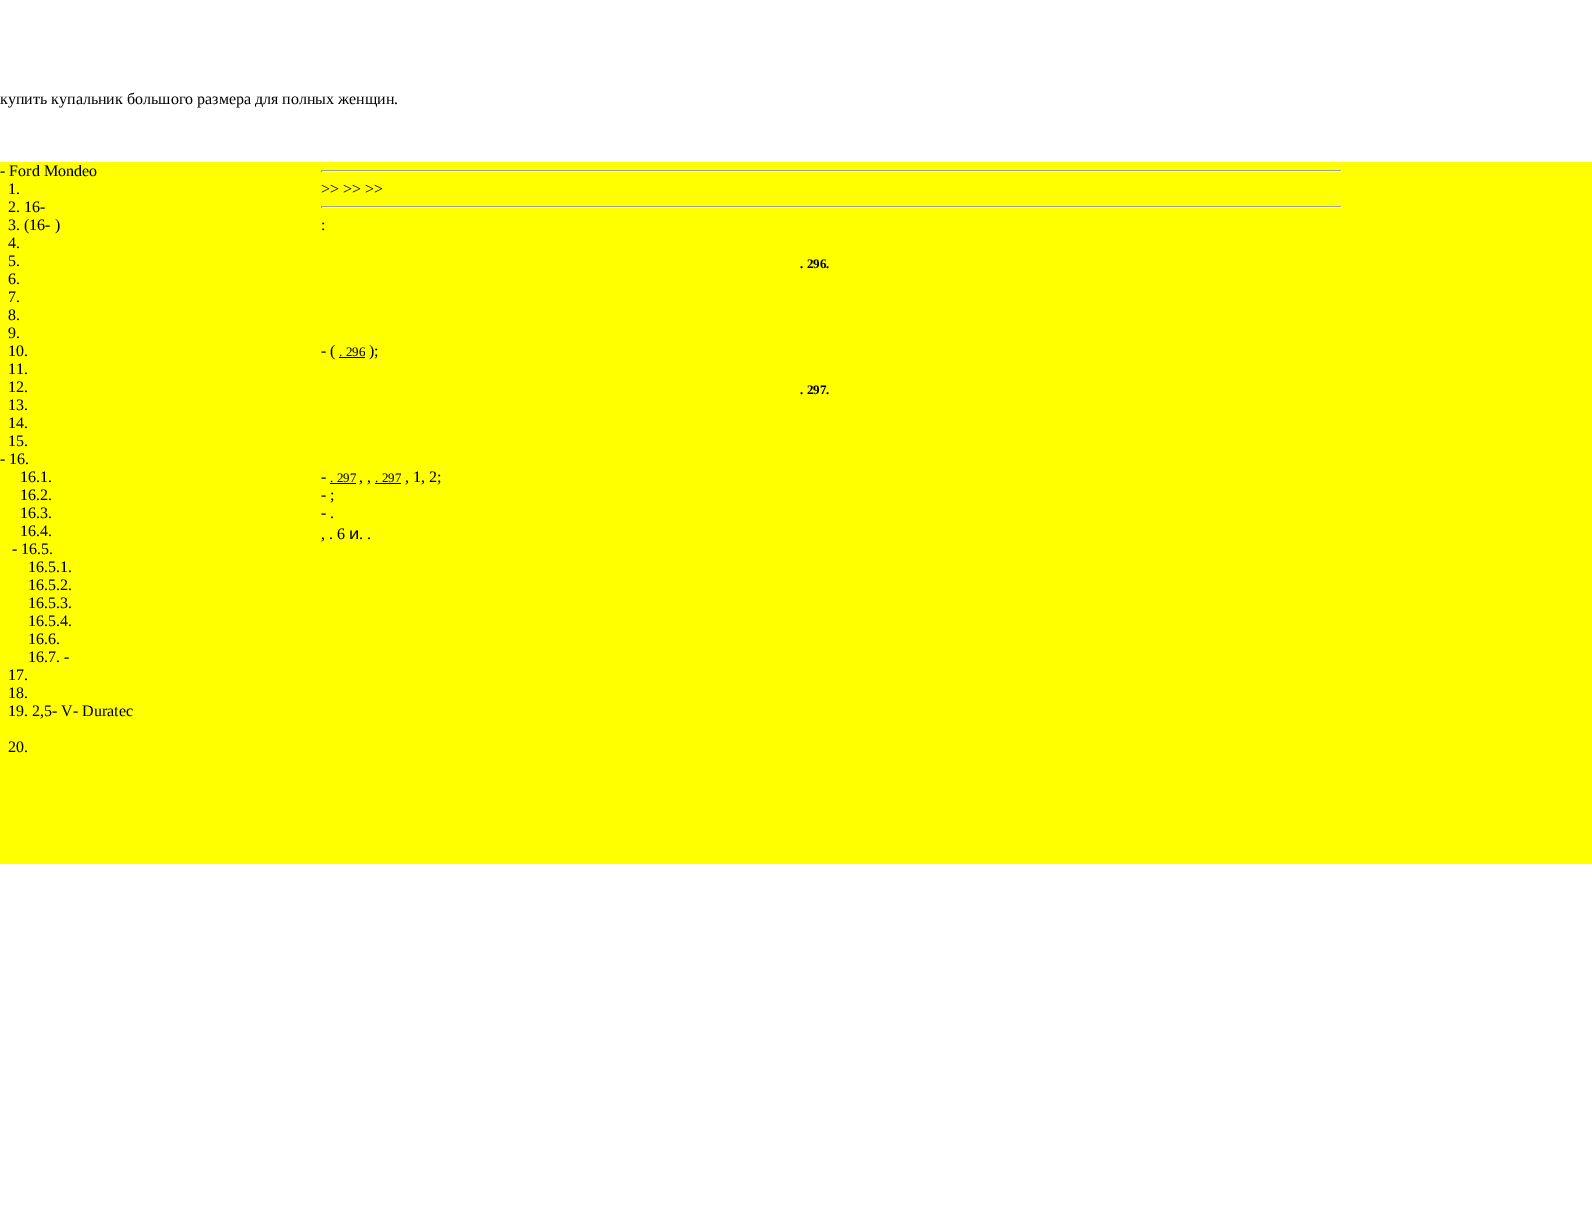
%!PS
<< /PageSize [1592 1206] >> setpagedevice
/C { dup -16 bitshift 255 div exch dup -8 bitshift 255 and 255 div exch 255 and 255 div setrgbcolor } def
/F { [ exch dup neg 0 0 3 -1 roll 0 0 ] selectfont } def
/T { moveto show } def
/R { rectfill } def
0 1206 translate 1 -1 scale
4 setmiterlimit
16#FFFFFF C
0 0 1592 1206 R
/LiberationSerif-Regular 16 F
16#000000 C
(купить купальник большого размера для полных женщин.) 0 104 T
16#FFFF00 C
0 162 1592 702 R
16#000000 C
(- Ford Mondeo) 0 176 T
(1.) 8 194 T
(2. 16-) 8 212 T
(3. \(16- \)) 8 230 T
(4.) 8 248 T
(5.) 8 266 T
(6.) 8 284 T
(7.) 8 302 T
(8.) 8 320 T
(9.) 8 338 T
(10.) 8 356 T
(11.) 8 374 T
(12.) 8 392 T
(13.) 8 410 T
(14.) 8 428 T
(15.) 8 446 T
(- 16.) 0 464 T
(16.1.) 20 482 T
(16.2.) 20 500 T
(16.3.) 20 518 T
(16.4.) 20 536 T
(- 16.5.) 12 554 T
(16.5.1.) 28 572 T
(16.5.2.) 28 590 T
(16.5.3.) 28 608 T
(16.5.4.) 28 626 T
(16.6.) 28 644 T
(16.7. -) 28 662 T
(17.) 8 680 T
(18.) 8 698 T
(19. 2,5- V- Duratec) 8 716 T
(20.) 8 752 T
16#9F9F9F C
321 170 1021 1 R
16#EEEEEE C
1341 170 1 2 R
321 171 1021 1 R
16#9F9F9F C
321 170 1 2 R
16#000000 C
(>> >> >>) 321 194 T
16#9F9F9F C
321 206 1021 1 R
16#EEEEEE C
1341 206 1 2 R
321 207 1021 1 R
16#9F9F9F C
321 206 1 2 R
16#000000 C
(:) 321 230 T
/LiberationSerif-Bold 13 F
(. 296.) 800 268 T
/LiberationSerif-Regular 16 F
(- \() 321 356 T
/LiberationSerif-Regular 13 F
(. 296) 339 356 T
339 357 26 1 R
/LiberationSerif-Regular 16 F
(\);) 369 356 T
/LiberationSerif-Bold 13 F
(. 297.) 800 394 T
/LiberationSerif-Regular 16 F
(-) 321 482 T
/LiberationSerif-Regular 13 F
(. 297) 330 482 T
330 483 26 1 R
(. 297) 375 482 T
375 483 26 1 R
/LiberationSerif-Regular 16 F
(, 1, 2;) 405 482 T
(, ,) 359 482 T
(- ;) 321 500 T
(- .) 321 518 T
(, . 6) 321 539 T
/NotoSans-Regular 16 F
(ͷ) 349 539 T
/LiberationSerif-Regular 16 F
(. .) 359 539 T
showpage
